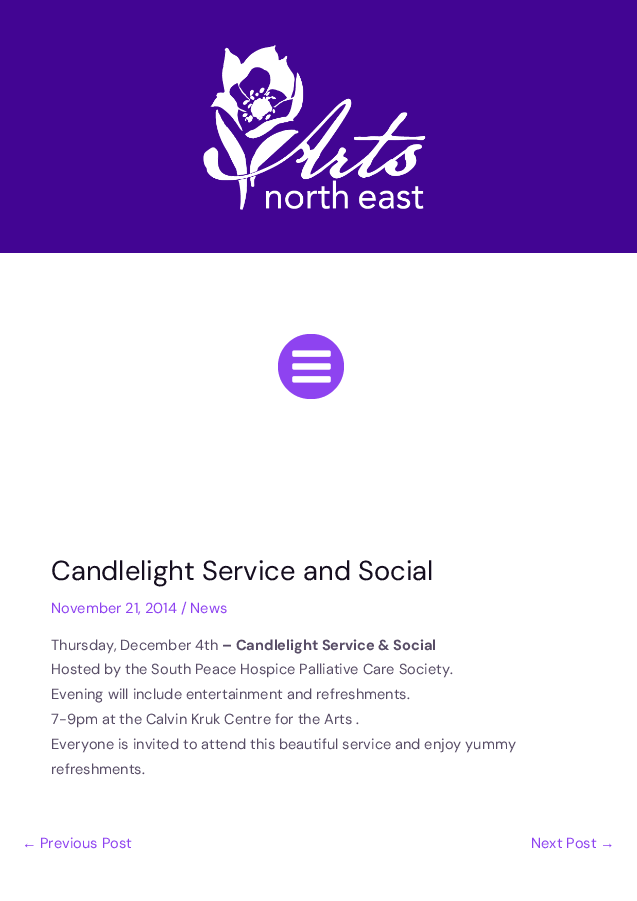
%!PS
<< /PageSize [637 901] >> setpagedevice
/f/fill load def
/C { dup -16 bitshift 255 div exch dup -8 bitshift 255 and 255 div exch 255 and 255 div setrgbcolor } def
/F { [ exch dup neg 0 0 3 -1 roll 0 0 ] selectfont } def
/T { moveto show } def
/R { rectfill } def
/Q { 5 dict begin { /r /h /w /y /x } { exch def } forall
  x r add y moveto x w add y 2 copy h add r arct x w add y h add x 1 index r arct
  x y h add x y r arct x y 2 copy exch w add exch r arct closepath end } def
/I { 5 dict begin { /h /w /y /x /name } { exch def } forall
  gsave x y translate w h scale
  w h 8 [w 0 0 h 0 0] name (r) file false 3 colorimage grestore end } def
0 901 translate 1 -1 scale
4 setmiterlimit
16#FFFFFF C
0 0 637 901 R
16#420593 C
0 0 637 253 R
(1.rgb) 203 45 223 165 I
16#8E43F0 C
278 334 66 65 32.5 Q f
(2.rgb) 292 350 39 33 I
/DMSans-Regular 27.4 F
16#150E1F C
(Candlelight Service and Social) 51 580 T
/DMSans-Regular 14.6 F
16#8E43F0 C
(November 21, 2014 / News) 51 613 T
16#584D66 C
(Thursday, December 4th) 51 650 T
/DMSans-Bold 14.6 F
(– Candlelight Service & Social) 222 650 T
/DMSans-Regular 14.6 F
(Hosted by the South Peace Hospice Palliative Care Society.) 51 674 T
(Evening will include entertainment and refreshments.) 51 699 T
(7-9pm at the Calvin Kruk Centre for the Arts .) 51 724 T
(Everyone is invited to attend this beautiful service and enjoy yummy) 51 749 T
(refreshments.) 51 774 T
/LiberationSans-Regular 14.6 F
16#8E43F0 C
(←) 22 848 T
/DMSans-Regular 14.6 F
(Previous Post) 40 848 T
(Next Post) 531 848 T
/LiberationSans-Regular 14.6 F
(→) 600 848 T
showpage
